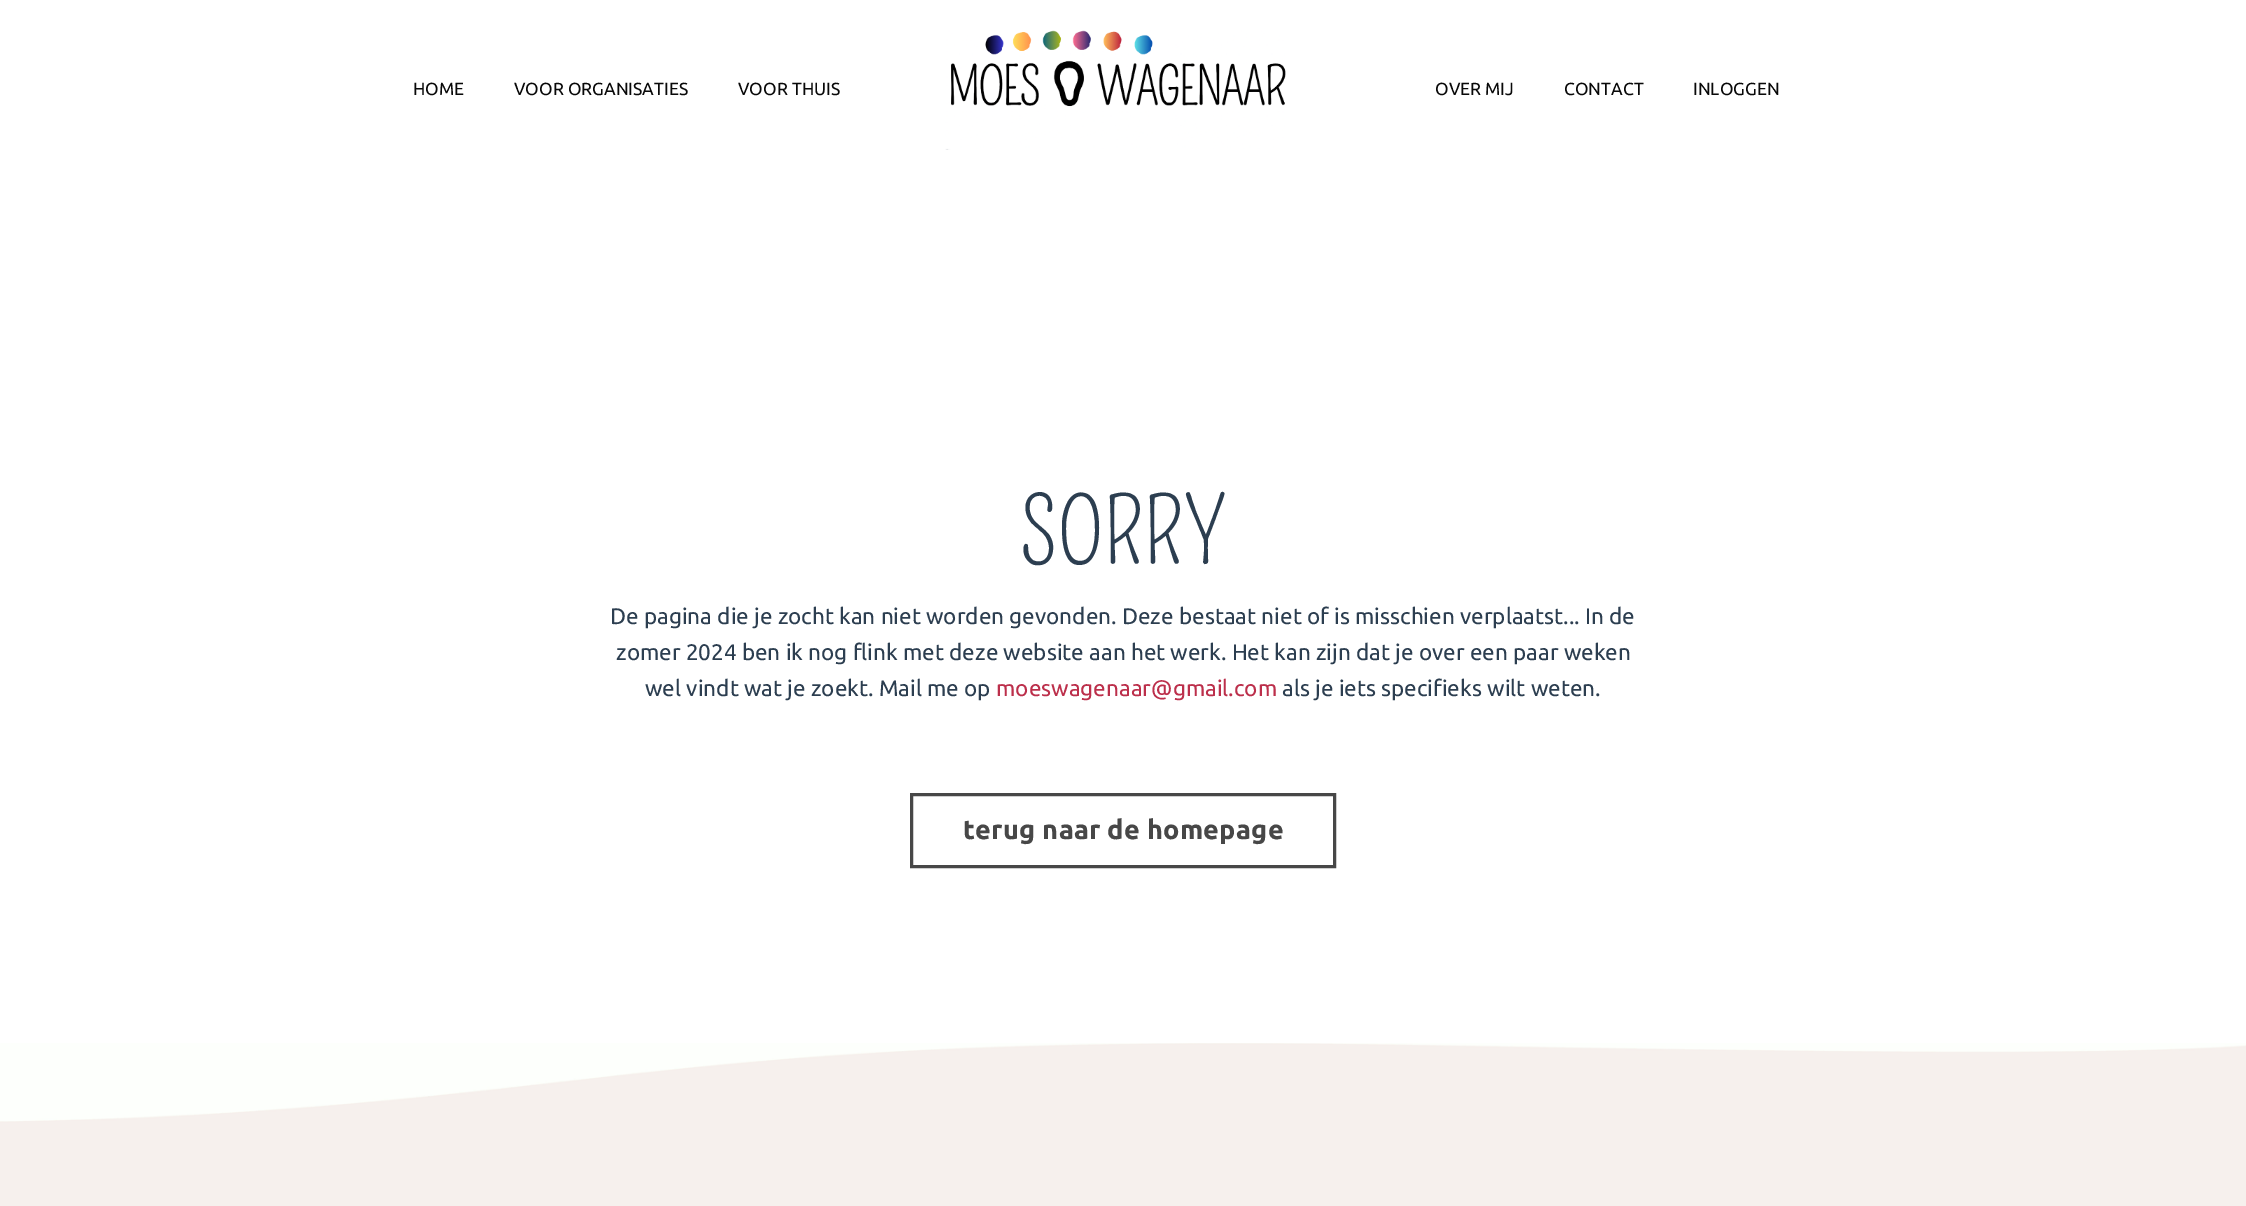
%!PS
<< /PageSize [2246 1206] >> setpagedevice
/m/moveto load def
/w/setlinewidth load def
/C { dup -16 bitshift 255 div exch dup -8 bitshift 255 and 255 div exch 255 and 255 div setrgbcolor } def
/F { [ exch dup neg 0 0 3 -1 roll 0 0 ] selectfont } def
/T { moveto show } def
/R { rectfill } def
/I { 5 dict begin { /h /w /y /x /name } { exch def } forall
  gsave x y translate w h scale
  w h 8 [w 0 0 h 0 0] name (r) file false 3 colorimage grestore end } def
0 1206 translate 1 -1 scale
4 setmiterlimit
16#FFFFFF C
0 0 2246 1206 R
/Ubuntu-Regular 17.5 F
16#090909 C
(HOME) 413 95 T
(VOOR ORGANISATIES) 514 95 T
(VOOR THUIS) 738 95 T
(1.rgb) 945 30 341 120 I
(OVER MIJ) 1435 95 T
(CONTACT) 1564 95 T
(INLOGGEN) 1693 95 T
(2.rgb) 0 1043 2246 163 I
/Pompiere-Regular 90 F
16#2C3E50 C
(SORRY) 1020 564 T
/Ubuntu-Regular 22.5 F
(De pagina die je zocht kan niet worden gevonden. Deze bestaat niet of is misschien verplaatst... In de) 610 624 T
(zomer 2024 ben ik nog flink met deze website aan het werk. Het kan zijn dat je over een paar weken) 616 660 T
(wel vindt wat je zoekt. Mail me op) 645 696 T
16#BC2F4B C
(moeswagenaar@gmail.com) 996 696 T
16#2C3E50 C
(als je iets specifieks wilt weten.) 1282 696 T
16#474747 C
3 w
911.5 794.5 423 72 rectstroke
/Ubuntu-Bold 27 F
963 839 m .3 0 (terug naar de homepage) ashow
showpage
